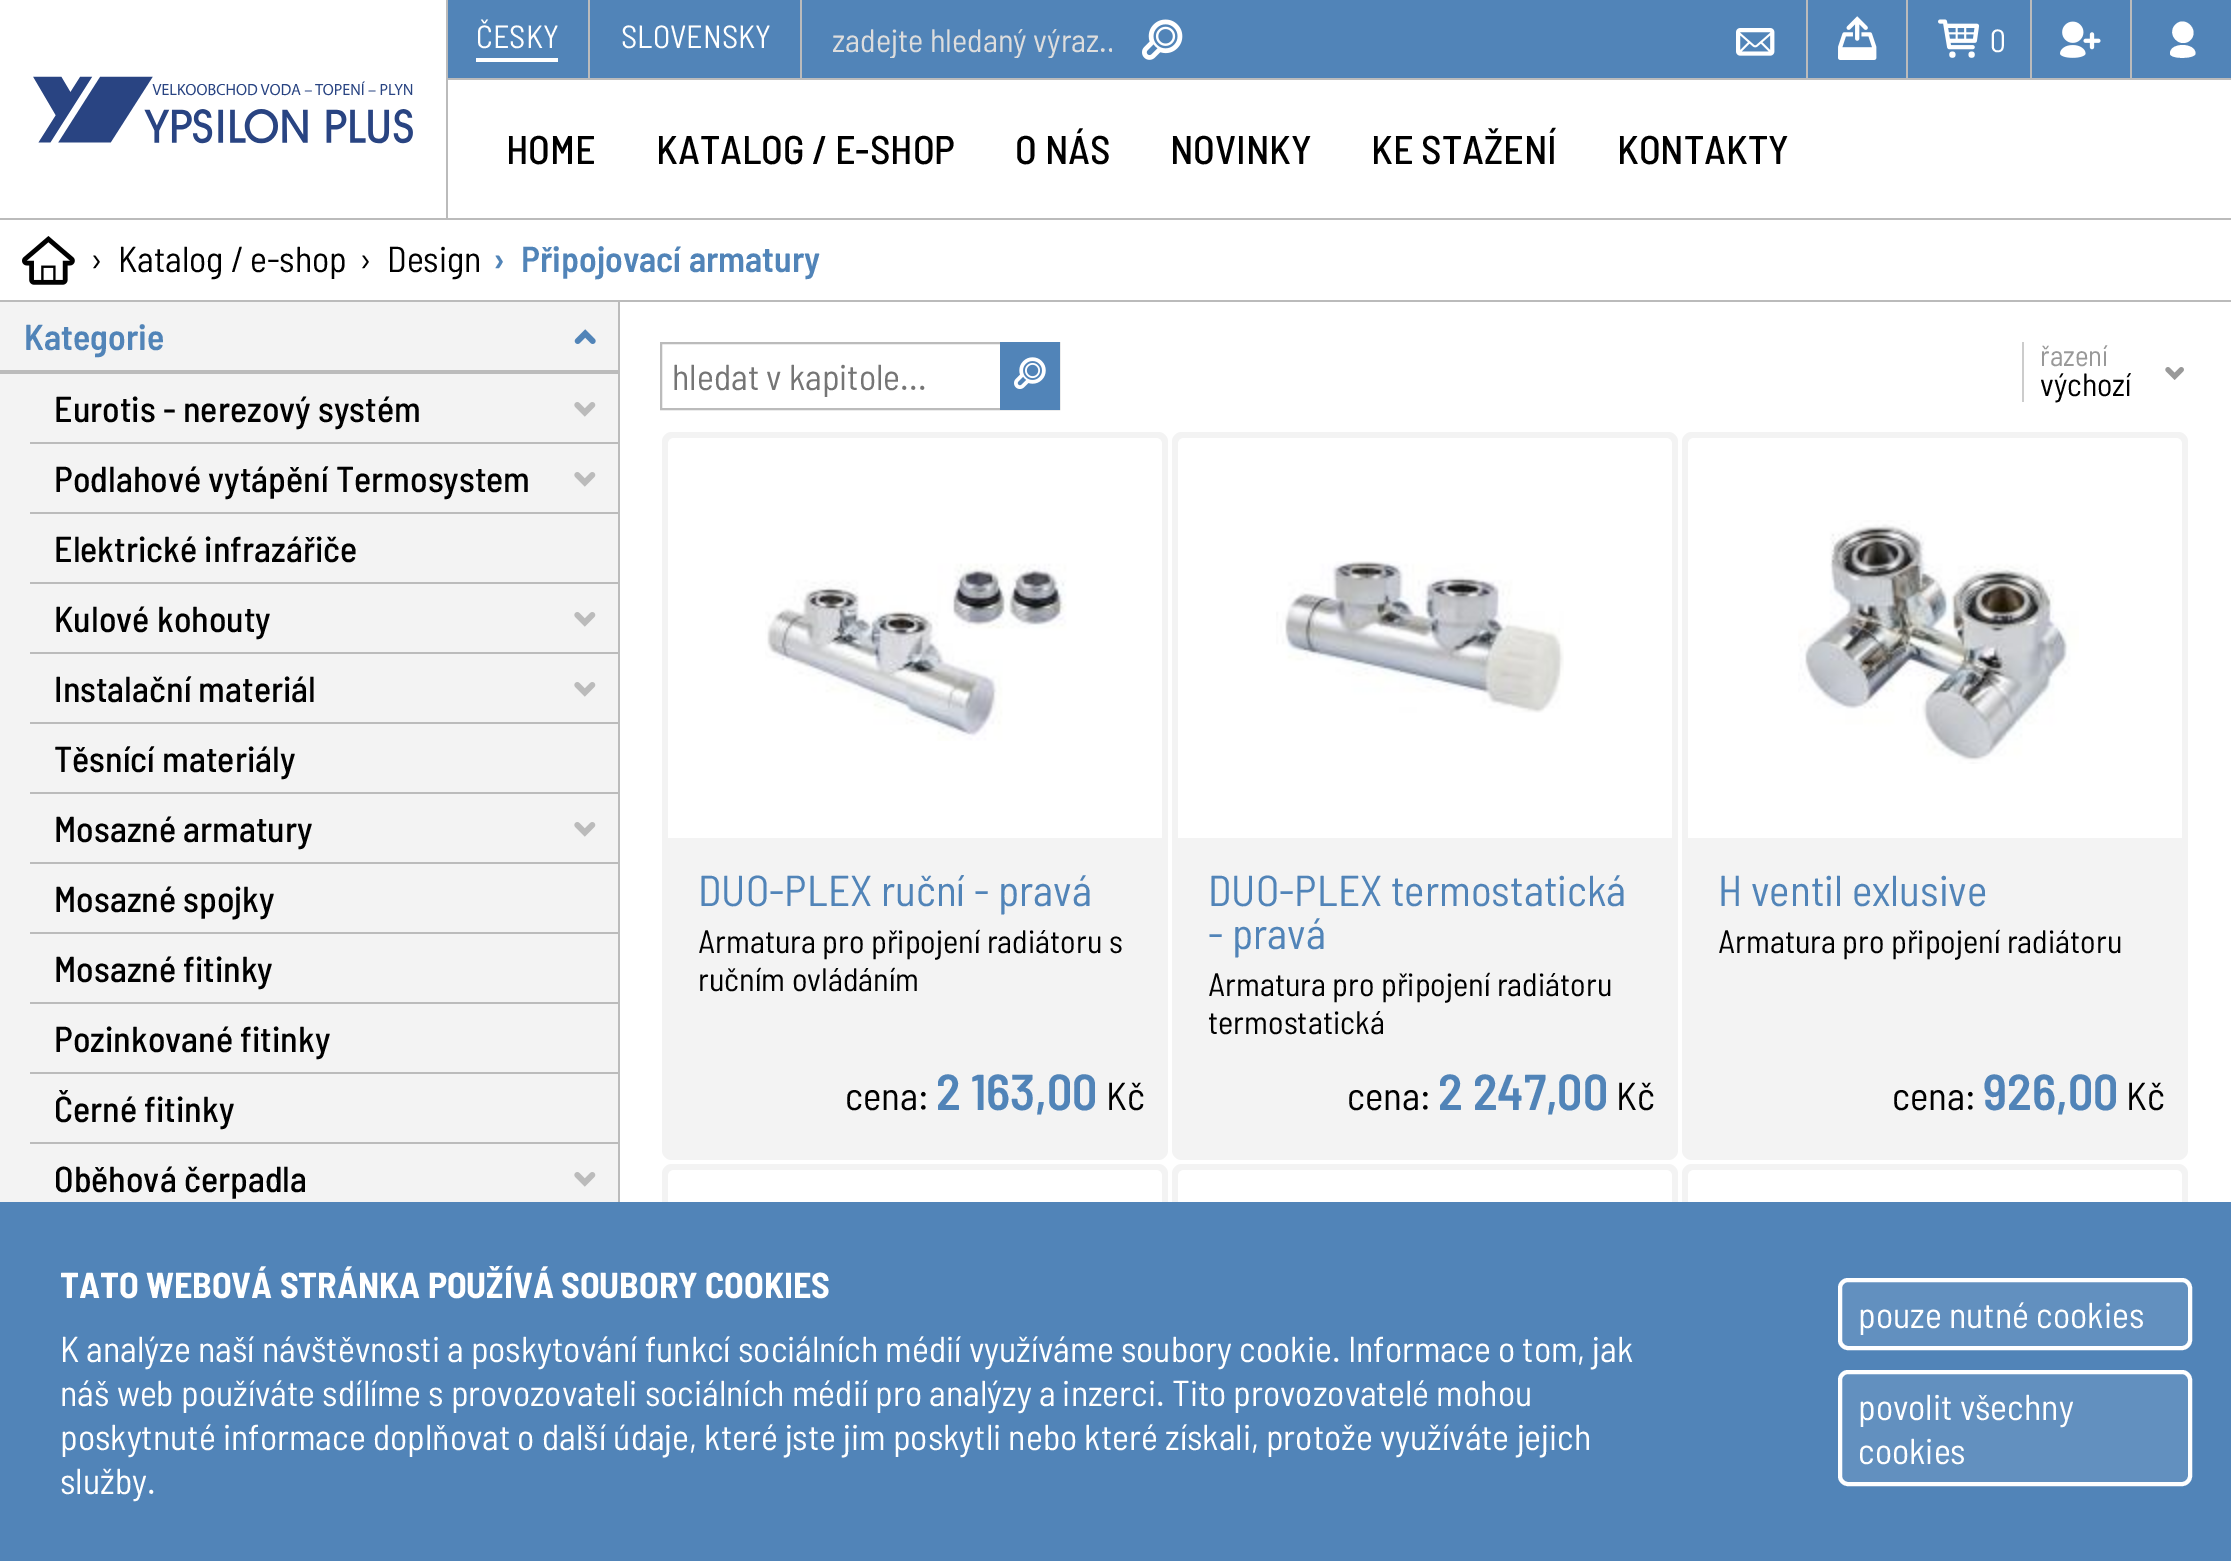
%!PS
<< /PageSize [2231 1561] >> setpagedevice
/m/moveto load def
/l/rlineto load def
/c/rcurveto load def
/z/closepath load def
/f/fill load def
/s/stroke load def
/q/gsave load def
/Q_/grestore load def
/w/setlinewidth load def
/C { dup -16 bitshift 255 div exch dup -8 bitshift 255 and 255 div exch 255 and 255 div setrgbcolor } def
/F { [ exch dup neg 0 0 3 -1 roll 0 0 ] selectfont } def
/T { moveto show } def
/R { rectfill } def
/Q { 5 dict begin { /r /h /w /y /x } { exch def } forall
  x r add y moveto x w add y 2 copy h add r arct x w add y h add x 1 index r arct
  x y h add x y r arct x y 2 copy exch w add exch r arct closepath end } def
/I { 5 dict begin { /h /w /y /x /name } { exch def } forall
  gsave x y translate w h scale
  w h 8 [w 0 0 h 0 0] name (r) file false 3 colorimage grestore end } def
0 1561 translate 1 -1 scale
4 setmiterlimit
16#FFFFFF C
0 0 2231 1561 R
16#BBBBBB C
0 218 2231 2 R
446 78 1785 2 R
446 0 2 220 R
(1.rgb) 33 76 380 68 I
16#5184B8 C
448 0 1783 78 R
16#BBBBBB C
588 0 2 78 R
/BarlowSemiCondensed-Regular 32 F
16#FFFFFF C
(ČESKY) 476 48 T
476 58 82 4 R
16#BBBBBB C
800 0 2 78 R
16#FFFFFF C
(SLOVENSKY) 621 48 T
q
832 20 280 38 rectclip
/BarlowSemiCondensed-Regular 32.4 F
16#DDDDDD C
(zadejte hledaný výraz..) 832 52 T
Q_
(2.rgb) 1142 19 41 41 I
16#BBBBBB C
1806 0 2 78 R
(3.rgb) 1736 28 39 28 I
1906 0 2 78 R
(4.rgb) 1838 16 39 44 I
2030 0 2 78 R
(5.rgb) 1938 19 42 39 I
16#FFFFFF C
(0) 1990 52 T
16#BBBBBB C
2130 0 2 78 R
(6.rgb) 2060 21 41 37 I
16#FFFFFF C
2175.5 24.5 m 9.5 -9.5 24.5 5.5 15 15.5 c -10 9.5 -25 -5.5 -15 -15.5 c z 2170 53.5 m 0 -11.5 25.5 -11 25.5 0 c 0 5.5 -25.5 6 -25.5 0 c z f
/BarlowSemiCondensed-Medium 40 F
16#000000 C
(HOME) 506 164 T
(KATALOG / E-SHOP) 656 164 T
(O NÁS) 1015 164 T
(NOVINKY) 1170 164 T
(KE STAŽENÍ) 1371 164 T
(KONTAKTY) 1617 164 T
16#BBBBBB C
0 300 2231 2 R
(7.rgb) 22 236 53 49 I
/BarlowSemiCondensed-Regular 36 F
16#000000 C
(›) 90 272 T
(Katalog / e-shop) 118 272 T
(›) 359 272 T
(Design) 387 272 T
/BarlowSemiCondensed-SemiBold 36 F
16#5184B8 C
(›) 493 272 T
(Připojovací armatury) 521 272 T
16#F3F3F3 C
0 302 618 900 R
16#BBBBBB C
618 302 2 900 R
0 370 620 4 R
16#5184B8 C
(Kategorie) 24 350 T
(8.rgb) 574 329 22 15 I
16#BBBBBB C
30 442 590 2 R
/BarlowSemiCondensed-Medium 36 F
16#000000 C
(Eurotis - nerezový systém) 54 422 T
(9.rgb) 574 402 22 15 I
16#BBBBBB C
30 512 590 2 R
16#000000 C
(Podlahové vytápění Termosystem) 54 492 T
(9.rgb) 574 472 22 15 I
16#BBBBBB C
30 582 590 2 R
16#000000 C
(Elektrické infrazářiče) 54 562 T
16#BBBBBB C
30 652 590 2 R
16#000000 C
(Kulové kohouty) 54 632 T
(9.rgb) 574 612 22 15 I
16#BBBBBB C
30 722 590 2 R
16#000000 C
(Instalační materiál) 54 702 T
(9.rgb) 574 682 22 15 I
16#BBBBBB C
30 792 590 2 R
16#000000 C
(Těsnící materiály) 54 772 T
16#BBBBBB C
30 862 590 2 R
16#000000 C
(Mosazné armatury) 54 842 T
(9.rgb) 574 822 22 15 I
16#BBBBBB C
30 932 590 2 R
16#000000 C
(Mosazné spojky) 54 912 T
16#BBBBBB C
30 1002 590 2 R
16#000000 C
(Mosazné fitinky) 54 982 T
16#BBBBBB C
30 1072 590 2 R
16#000000 C
(Pozinkované fitinky) 54 1052 T
16#BBBBBB C
30 1142 590 2 R
16#000000 C
(Černé fitinky) 54 1122 T
(Oběhová čerpadla) 54 1192 T
(9.rgb) 574 1172 22 15 I
16#BBBBBB C
2 w
661 343 398 66 rectstroke
/BarlowSemiCondensed-Regular 36 F
16#757575 C
(hledat v kapitole...) 672 390 T
16#5184B8 C
1000 342 60 68 R
(10.rgb) 1014 357 32 32 I
16#CCCCCC C
2022 342 2 60 R
/BarlowSemiCondensed-Regular 29 F
16#999999 C
(řazení) 2040 366 T
/BarlowSemiCondensed-Regular 32 F
16#000000 C
(výchozí) 2040 396 T
(11.rgb) 2165 367 19 13 I
16#F3F3F3 C
662 432 506 728 10 Q f
16#FFFFFF C
674 438 m 482 0 l 3.5 0 6 2.5 6 6 c 0 394 l -494 0 l 0 -394 l 0 -3.5 2.5 -6 6 -6 c z f
(12.rgb) 765 563 302 178 I
/BarlowSemiCondensed-Regular 43.25 F
16#5184B8 C
(DUO-PLEX ruční - pravá) 698 906 T
/BarlowSemiCondensed-Regular 32.4 F
16#000000 C
(Armatura pro připojení radiátoru s) 698 953 T
(ručním ovládáním) 698 991 T
/BarlowSemiCondensed-Regular 39 F
(cena:) 845 1110 T
/BarlowSemiCondensed-SemiBold 50.5 F
16#5184B8 C
(2 163,00) 936 1110 T
/BarlowSemiCondensed-Regular 39 F
16#000000 C
(Kč) 1106 1110 T
16#F3F3F3 C
1172 432 506 728 10 Q f
16#FFFFFF C
1184 438 m 482 0 l 3.5 0 6 2.5 6 6 c 0 394 l -494 0 l 0 -394 l 0 -3.5 2.5 -6 6 -6 c z f
(13.rgb) 1276 561 288 152 I
/BarlowSemiCondensed-Regular 43.25 F
16#5184B8 C
(DUO-PLEX termostatická) 1208 906 T
(- pravá) 1208 949 T
/BarlowSemiCondensed-Regular 32.4 F
16#000000 C
(Armatura pro připojení radiátoru) 1208 996 T
(termostatická) 1208 1034 T
/BarlowSemiCondensed-Regular 39 F
(cena:) 1347 1110 T
/BarlowSemiCondensed-SemiBold 50.5 F
16#5184B8 C
(2 247,00) 1438 1110 T
/BarlowSemiCondensed-Regular 39 F
16#000000 C
(Kč) 1616 1110 T
16#F3F3F3 C
1682 432 506 728 10 Q f
16#FFFFFF C
1694 438 m 482 0 l 3.5 0 6 2.5 6 6 c 0 394 l -494 0 l 0 -394 l 0 -3.5 2.5 -6 6 -6 c z f
(14.rgb) 1798 520 281 244 I
/BarlowSemiCondensed-Regular 43.25 F
16#5184B8 C
(H ventil exlusive) 1718 906 T
/BarlowSemiCondensed-Regular 32.4 F
16#000000 C
(Armatura pro připojení radiátoru) 1718 953 T
/BarlowSemiCondensed-Regular 39 F
(cena:) 1892 1110 T
/BarlowSemiCondensed-SemiBold 50.5 F
16#5184B8 C
(926,00) 1983 1110 T
/BarlowSemiCondensed-Regular 39 F
16#000000 C
(Kč) 2126 1110 T
16#F3F3F3 C
662 1164 506 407 10 Q f
16#FFFFFF C
674 1170 m 482 0 l 3.5 0 6 2.5 6 6 c 0 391 l -494 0 l 0 -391 l 0 -3.5 2.5 -6 6 -6 c z f
16#F3F3F3 C
1172 1164 506 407 10 Q f
16#FFFFFF C
1184 1170 m 482 0 l 3.5 0 6 2.5 6 6 c 0 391 l -494 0 l 0 -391 l 0 -3.5 2.5 -6 6 -6 c z f
16#F3F3F3 C
1682 1164 506 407 10 Q f
16#FFFFFF C
1694 1170 m 482 0 l 3.5 0 6 2.5 6 6 c 0 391 l -494 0 l 0 -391 l 0 -3.5 2.5 -6 6 -6 c z f
16#5184B8 C
0 1202 2231 359 R
/BarlowSemiCondensed-Bold 36 F
16#FFFFFF C
(TATO WEBOVÁ STRÁNKA POUŽÍVÁ SOUBORY COOKIES) 60 1298 T
/BarlowSemiCondensed-Regular 36 F
(K analýze naší návštěvnosti a poskytování funkcí sociálních médií využíváme soubory cookie. Informace o tom, jak) 60 1362 T
(náš web používáte sdílíme s provozovateli sociálních médií pro analýzy a inzerci. Tito provozovatelé mohou) 60 1406 T
(poskytnuté informace doplňovat o další údaje, které jste jim poskytli nebo které získali, protože využíváte jejich) 60 1450 T
(služby.) 60 1494 T
16#6290BF C
1840 1280 350 68 8 Q q f Q_
16#FFFFFF C
4 w
s
(pouze nutné cookies) 1858 1328 T
16#6290BF C
1840 1372 350 112 8 Q q f Q_
16#FFFFFF C
s
(povolit všechny) 1858 1420 T
(cookies) 1858 1464 T
showpage
